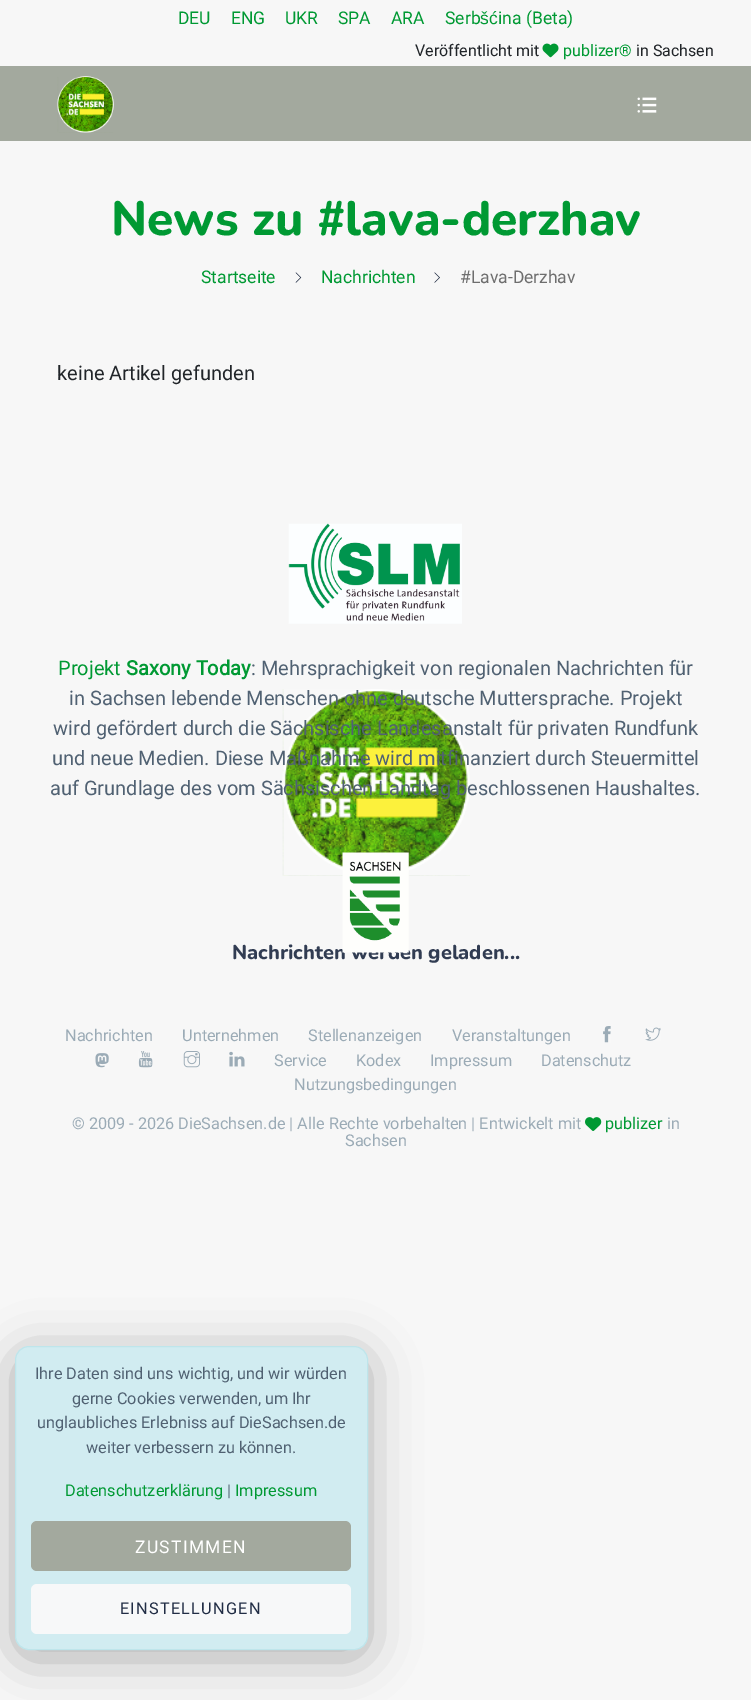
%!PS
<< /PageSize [751 1700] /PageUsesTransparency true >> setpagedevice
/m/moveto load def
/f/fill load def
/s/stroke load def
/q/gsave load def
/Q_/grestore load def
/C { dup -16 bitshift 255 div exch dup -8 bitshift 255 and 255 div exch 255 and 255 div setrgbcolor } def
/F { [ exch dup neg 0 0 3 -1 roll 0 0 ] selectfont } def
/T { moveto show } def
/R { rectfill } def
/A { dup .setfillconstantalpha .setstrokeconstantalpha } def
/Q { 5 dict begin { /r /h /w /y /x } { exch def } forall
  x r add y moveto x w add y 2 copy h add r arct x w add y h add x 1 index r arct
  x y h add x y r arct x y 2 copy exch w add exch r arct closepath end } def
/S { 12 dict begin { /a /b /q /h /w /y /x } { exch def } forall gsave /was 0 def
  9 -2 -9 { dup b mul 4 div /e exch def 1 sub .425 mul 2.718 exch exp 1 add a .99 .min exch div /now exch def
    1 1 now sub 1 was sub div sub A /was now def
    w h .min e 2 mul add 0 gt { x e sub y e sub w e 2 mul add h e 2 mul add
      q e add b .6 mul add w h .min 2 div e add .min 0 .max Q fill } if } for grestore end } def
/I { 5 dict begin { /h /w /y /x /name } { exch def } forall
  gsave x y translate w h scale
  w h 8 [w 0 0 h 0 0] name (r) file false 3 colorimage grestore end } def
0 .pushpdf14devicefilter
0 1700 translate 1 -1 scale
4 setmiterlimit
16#F7F7F7 C
0 0 751 1700 R
/Roboto-Regular 17.5 F
16#009933 C
(DEU) 178 24 T
(ENG) 231 24 T
(UKR) 285 24 T
(SPA) 338 24 T
(ARA) 391 24 T
(Serb) 445 24 T
/LiberationSans-Regular 17.5 F
(šć) 480 24 T
/Roboto-Regular 17.5 F
(ina \(Beta\)) 498 24 T
/Roboto-Regular 16 F
16#212529 C
(Veröffentlicht mit) 415 56 T
(1.rgb) 542 43 17 15 I
16#009933 C
(publizer®) 563 56 T
16#212529 C
(in Sachsen) 636 56 T
16#A3A99E C
0 66 751 75 R
(2.rgb) 57 76 57 57 I
(3.rgb) 637 97 20 16 I
/Nunito-ExtraLight 48 F
16#009933 C
(News zu #lava-derzhav) 111 235 T
/Roboto-Regular 17.5 F
(Startseite) 201 283 T
(4.rgb) 295 272 7 11 I
(Nachrichten) 321 283 T
(5.rgb) 434 272 6 11 I
16#6E6E6E C
(#Lava-Derzhav) 460 283 T
/Roboto-Regular 20 F
16#212529 C
(keine Artikel gefunden) 57 380 T
(6.rgb) 288 523 174 101 I
16#009933 C
(Projekt) 58 675 T
/Roboto-Bold 20 F
(Saxony Today) 126 675 T
/Roboto-Regular 20 F
16#506172 C
(: Mehrsprachigkeit von regionalen Nachrichten für) 251 675 T
(15.rgb) 282 689 188 187 I
(in Sachsen lebende Menschen ohne deutsche Muttersprache. Projekt) 69 705 T
(wird gefördert durch die Sächsische Landesanstalt für privaten Rundfunk) 53 735 T
(und neue Medien. Diese Maßnahme wird mitfinanziert durch Steuermittel) 52 765 T
(auf Grundlage des vom Sächsischen Landtag beschlossenen Haushaltes.) 50 795 T
/Nunito-ExtraLight 20 F
16#313C52 C
(Nachrichten werden geladen...) 232 959 T
(7.rgb) 342 852 67 101 I
/Roboto-Regular 16.25 F
16#9BABB6 C
(Nachrichten) 65 1041 T
(Unternehmen) 182 1041 T
(Stellenanzeigen) 308 1041 T
(Veranstaltungen) 452 1041 T
(8.rgb) 603 1026 8 17 I
(9.rgb) 645 1027 16 14 I
(10.rgb) 95 1053 14 15 I
(11.rgb) 138 1051 15 17 I
(12.rgb) 183 1051 17 17 I
(13.rgb) 229 1051 16 16 I
(Service) 274 1066 T
(Kodex) 356 1066 T
(Impressum) 430 1066 T
(Datenschutz) 541 1066 T
(Nutzungsbedingungen) 294 1090 T
(© 2009 - 2026 DieSachsen.de | Alle Rechte vorbehalten | Entwickelt mit) 72 1129 T
(14.rgb) 585 1117 17 14 I
16#009933 C
(publizer) 605 1129 T
16#9BABB6 C
(in) 667 1129 T
(Sachsen) 345 1146 T
16#000000 C
15 1354 353 304 14 25 .3 S
16#D1ECF1 C
15.5 1346.5 352 303 13.5 Q q f Q_
16#BEE5EB C
s
16#506172 C
(Ihre Daten sind uns wichtig, und wir würden) 35 1379 T
(gerne Cookies verwenden, um Ihr) 72 1404 T
(unglaubliches Erlebniss auf DieSachsen.de) 37 1428 T
(weiter verbessern zu können.) 86 1453 T
16#009933 C
(Datenschutzerklärung) 65 1496 T
16#506172 C
(|) 227 1496 T
16#009933 C
(Impressum) 235 1496 T
16#A3A99E C
31 1521 320 50 6 Q f
/Roboto-Regular 17.5 F
16#FFFFFF C
135 1553 m 1.25 0 (ZUSTIMMEN) ashow
16#F7F8F9 C
31 1584 320 50 6 Q f
/Roboto-Regular 16.25 F
16#212D45 C
120 1614 m 1.25 0 (EINSTELLUNGEN) ashow
.poppdf14devicefilter showpage
